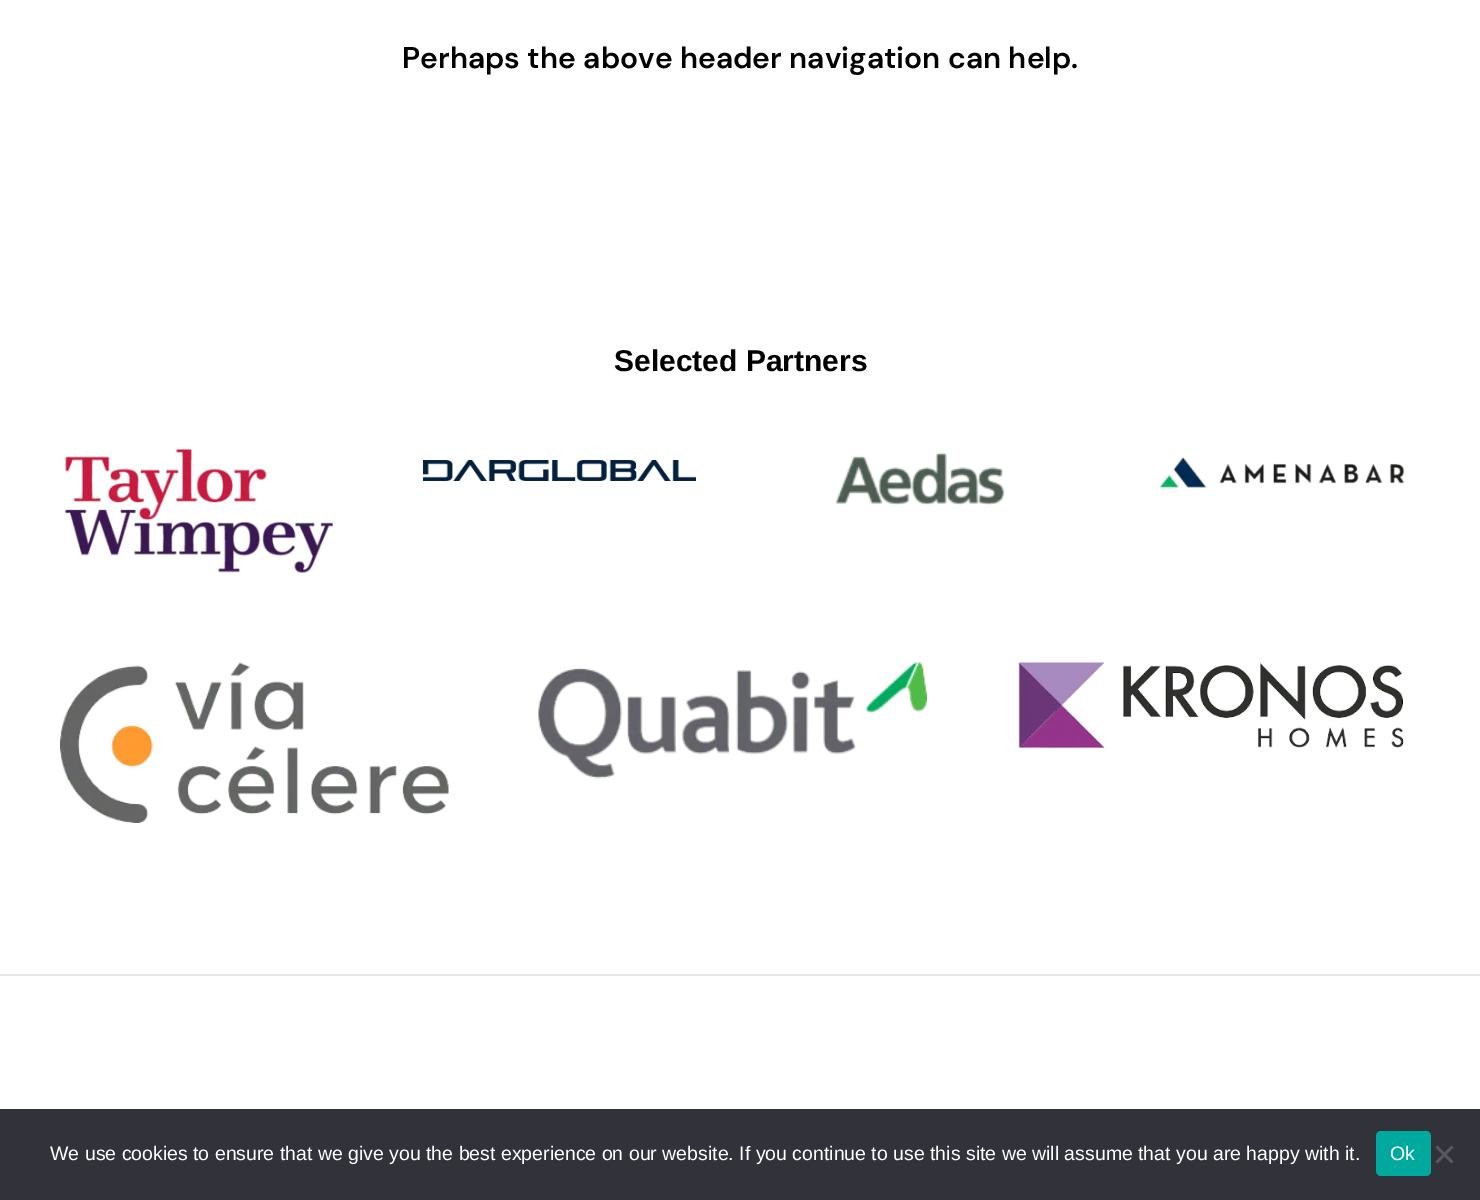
%!PS
<< /PageSize [1480 1200] >> setpagedevice
/m/moveto load def
/l/rlineto load def
/z/closepath load def
/f/fill load def
/C { dup -16 bitshift 255 div exch dup -8 bitshift 255 and 255 div exch 255 and 255 div setrgbcolor } def
/F { [ exch dup neg 0 0 3 -1 roll 0 0 ] selectfont } def
/T { moveto show } def
/R { rectfill } def
/Q { 5 dict begin { /r /h /w /y /x } { exch def } forall
  x r add y moveto x w add y 2 copy h add r arct x w add y h add x 1 index r arct
  x y h add x y r arct x y 2 copy exch w add exch r arct closepath end } def
/I { 5 dict begin { /h /w /y /x /name } { exch def } forall
  gsave x y translate w h scale
  w h 8 [w 0 0 h 0 0] name (r) file false 3 colorimage grestore end } def
0 1200 translate 1 -1 scale
4 setmiterlimit
16#FFFFFF C
0 0 1480 1200 R
/DMSans-SemiBold 30 F
16#000000 C
402 68 m .25 0 32 (Perhaps the above header navigation can help.) widthshow
/LiberationSans-Bold 30 F
(Selected Partners) 614 371 T
(1.rgb) 64 449 269 124 I
(2.rgb) 423 460 273 21 I
(3.rgb) 835 452 170 53 I
(4.rgb) 1159 457 246 32 I
(5.rgb) 60 662 389 161 I
(6.rgb) 538 662 389 117 I
(7.rgb) 1018 662 386 86 I
16#E6E6E6 C
0 974 1480 2 R
16#32323A C
0 1109 1480 91 R
/LiberationSans-Regular 19.5 F
16#FFFFFF C
(We use cookies to ensure that we give you the best experience on our website. If you continue to use this site we will assume that you are happy with it.) 50 1160 T
16#00A99D C
1376 1131 55 45 5 Q f
16#FFFFFF C
(Ok) 1390 1160 T
16#59595D C
1451.5 1145.5 m 2 2 l -16 16 l -2 -2 l z f
1435.5 1147.5 m 2 -2 l 16 16 l -2 2 l z f
showpage
